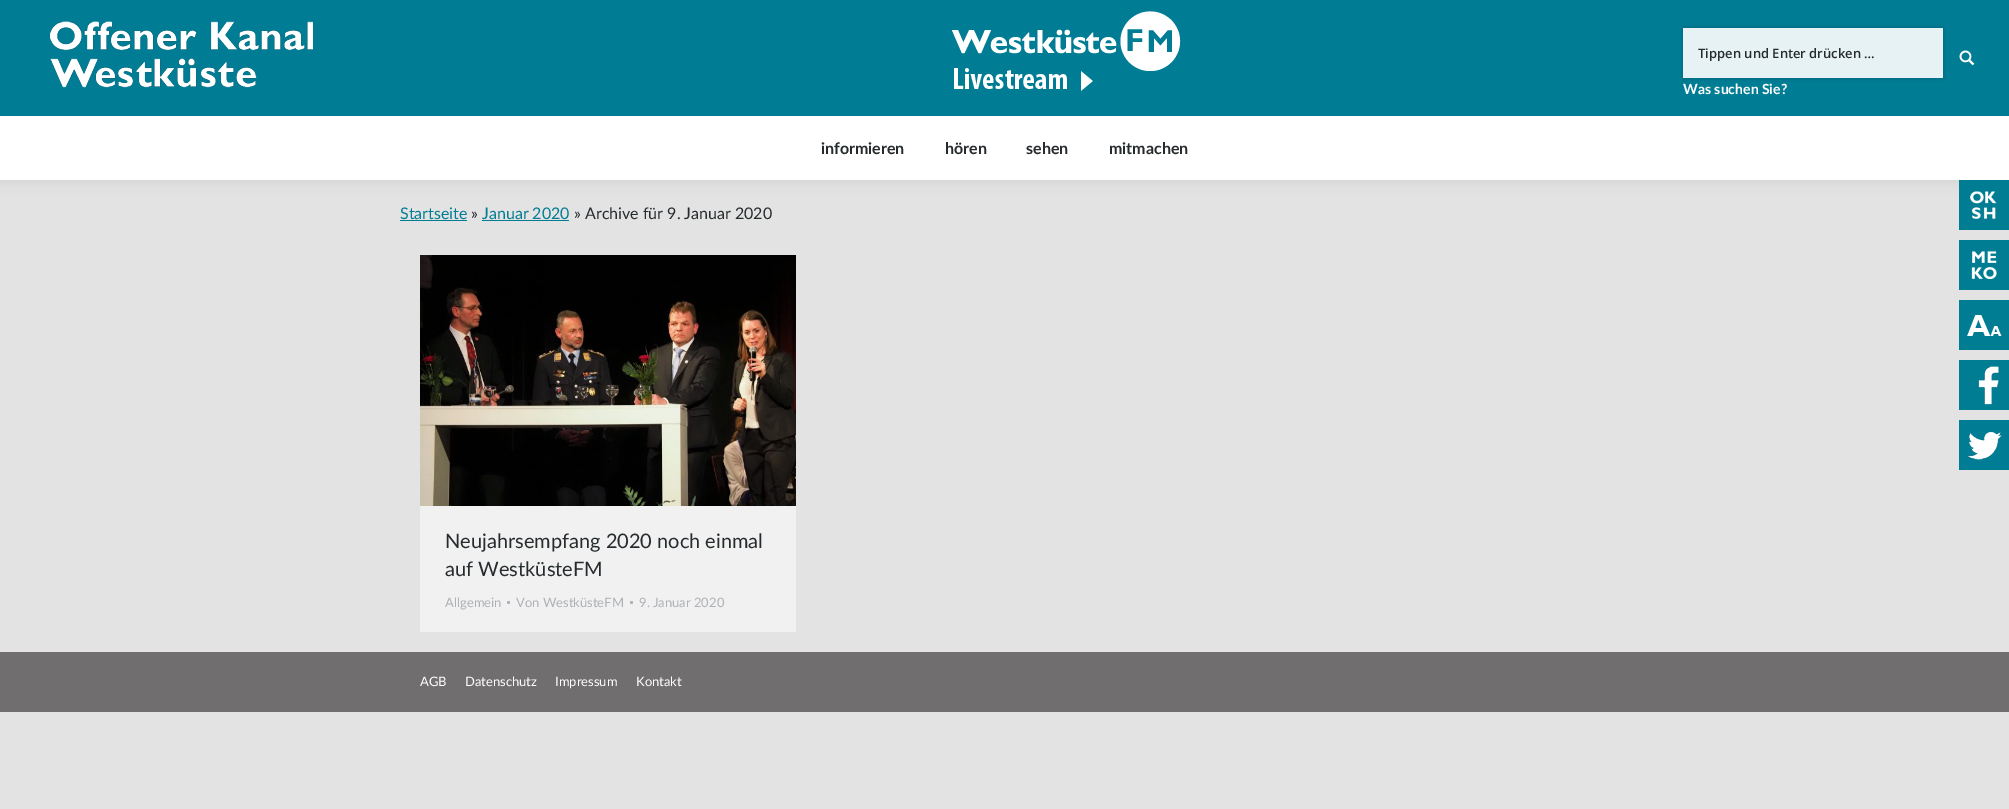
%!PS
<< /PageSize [2009 809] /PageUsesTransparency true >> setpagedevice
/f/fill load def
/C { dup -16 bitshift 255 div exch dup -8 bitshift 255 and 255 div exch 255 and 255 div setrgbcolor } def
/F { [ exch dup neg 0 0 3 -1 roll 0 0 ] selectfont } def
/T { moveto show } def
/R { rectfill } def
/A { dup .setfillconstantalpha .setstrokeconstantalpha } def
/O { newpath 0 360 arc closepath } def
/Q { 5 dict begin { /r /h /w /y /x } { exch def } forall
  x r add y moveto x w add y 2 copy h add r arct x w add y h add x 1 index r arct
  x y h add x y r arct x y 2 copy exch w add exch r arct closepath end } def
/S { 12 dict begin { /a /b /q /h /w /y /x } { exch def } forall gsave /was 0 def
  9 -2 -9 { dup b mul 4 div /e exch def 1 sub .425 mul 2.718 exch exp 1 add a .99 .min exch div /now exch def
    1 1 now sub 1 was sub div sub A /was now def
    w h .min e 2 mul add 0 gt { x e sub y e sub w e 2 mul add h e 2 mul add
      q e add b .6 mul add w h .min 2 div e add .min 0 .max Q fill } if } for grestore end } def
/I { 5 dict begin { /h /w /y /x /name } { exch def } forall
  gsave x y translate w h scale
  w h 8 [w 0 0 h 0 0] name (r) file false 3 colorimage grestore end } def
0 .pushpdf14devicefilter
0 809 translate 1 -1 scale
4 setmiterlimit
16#E3E3E3 C
0 0 2009 809 R
16#000000 C
-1 -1 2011 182 0 7.5 .07 S
16#007C94 C
0 0 2009 116 R
(1.rgb) 50 21 263 67 I
(2.rgb) 951 11 230 80 I
16#000000 C
1683 28 260 50 0 2 .2 S
16#E6F2F4 C
1683 28 260 50 R
/OpenSans-SemiBold 13 F
16#262B2E C
(Tippen und Enter drücken …) 1698 58 T
(3.rgb) 1959 50 16 16 I
/Lato-Bold 14 F
16#FFFFFF C
(Was suchen Sie?) 1683 94 T
0 116 2009 64 R
/Lato-Bold 16 F
16#262B2E C
(informieren) 821 154 T
(hören) 945 154 T
(sehen) 1026 154 T
(mitmachen) 1109 154 T
/Lato-Regular 16 F
16#007C93 C
(Startseite) 400 219 T
400 220 67 1 R
16#262B2E C
(») 471 219 T
16#007C93 C
(Januar 2020) 482 219 T
482 220 87 1 R
16#262B2E C
(» Archive für 9. Januar 2020) 574 219 T
16#F1F1F1 C
420 506 376 126 R
(4.rgb) 420 255 376 251 I
/Lato-Regular 20 F
16#262B2E C
(Neujahrsempfang 2020 noch einmal) 445 548 T
(auf WestküsteFM) 445 576 T
/Lato-Regular 13 F
16#ADB0B6 C
(Allgemein) 445 607 T
508.5 602.5 1.5 O f
(Von WestküsteFM) 516 607 T
631.5 602.5 1.5 O f
(9. Januar 2020) 639 607 T
16#706E6F C
0 652 2009 60 R
16#FFFFFF C
(AGB) 420 686 T
(Datenschutz) 465 686 T
(Impressum) 555 686 T
(Kontakt) 636 686 T
16#007C93 C
1959 180 50 50 R
(5.rgb) 1970 191 27 28 I
1959 240 50 50 R
(6.rgb) 1971 251 26 29 I
1959 300 50 50 R
(7.rgb) 1967 315 35 21 I
1959 360 50 50 R
(8.rgb) 1978 366 21 39 I
16#007C94 C
1959 420 50 50 R
(9.rgb) 1968 432 34 28 I
.poppdf14devicefilter showpage
